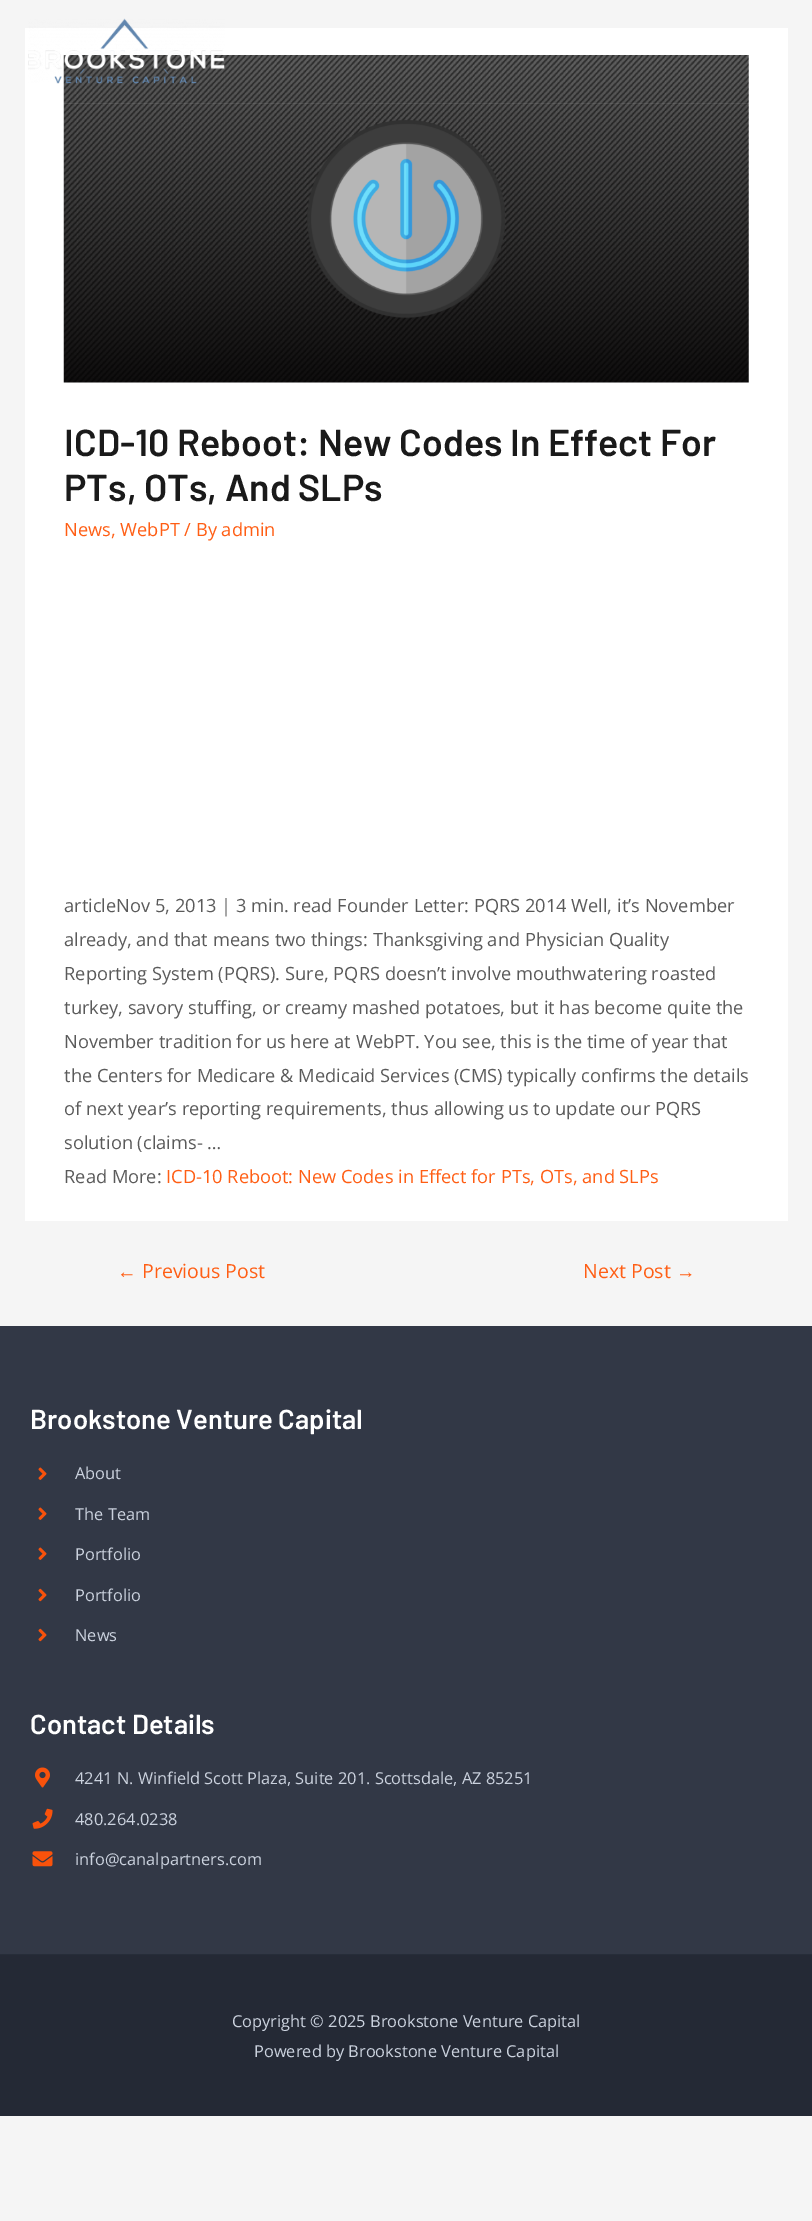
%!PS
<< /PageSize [812 2221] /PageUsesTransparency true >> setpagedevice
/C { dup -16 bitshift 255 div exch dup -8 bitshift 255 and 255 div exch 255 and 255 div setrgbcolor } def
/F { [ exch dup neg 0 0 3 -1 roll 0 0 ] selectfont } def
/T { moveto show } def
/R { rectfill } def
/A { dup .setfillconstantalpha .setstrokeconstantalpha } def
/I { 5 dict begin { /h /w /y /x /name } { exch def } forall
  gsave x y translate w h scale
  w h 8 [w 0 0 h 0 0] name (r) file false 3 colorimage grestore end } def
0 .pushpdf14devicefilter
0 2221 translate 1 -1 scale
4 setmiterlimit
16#F5F5F5 C
0 0 812 2221 R
16#FFFFFF C
25 28 763 1193 R
(2.rgb) 63 55 686 328 I
0.08 A
63 103 686 1 R
1 A
(1.rgb) 28 18 197 66 I
/Barlow-SemiBold 37.5 F
16#1A1A1A C
(ICD-10 Reboot: New Codes In Effect For) 64 456 T
(PTs, OTs, And SLPs) 64 501 T
/OpenSans-Regular 18.25 F
16#FF5E14 C
(News, WebPT / By admin) 64 536 T
16#5A5A5A C
(articleNov 5, 2013 | 3 min. read Founder Letter: PQRS 2014 Well, it’s November) 64 912 T
(already, and that means two things: Thanksgiving and Physician Quality) 64 946 T
(Reporting System \(PQRS\). Sure, PQRS doesn’t involve mouthwatering roasted) 64 980 T
(turkey, savory stuffing, or creamy mashed potatoes, but it has become quite the) 64 1014 T
(November tradition for us here at WebPT. You see, this is the time of year that) 64 1048 T
(the Centers for Medicare & Medicaid Services \(CMS\) typically confirms the details) 64 1082 T
(of next year’s reporting requirements, thus allowing us to update our PQRS) 64 1115 T
(solution \(claims- …) 64 1149 T
(Read More:) 64 1183 T
16#FF5E14 C
(ICD-10 Reboot: New Codes in Effect for PTs, OTs, and SLPs) 166 1183 T
/LiberationSans-Regular 19.5 F
(←) 117 1278 T
/OpenSans-Regular 19.5 F
(Previous Post) 142 1278 T
(Next Post) 583 1278 T
/LiberationSans-Regular 19.5 F
(→) 676 1278 T
16#323846 C
0 1326 812 628 R
/Barlow-SemiBold 27.4 F
16#FFFFFF C
(Brookstone Venture Capital) 30 1429 T
(3.rgb) 38 1467 9 13 I
/OpenSans-Regular 16.4 F
16#CBD2DE C
(About) 75 1479 T
(3.rgb) 38 1507 9 13 I
(The Team) 75 1520 T
(3.rgb) 38 1547 9 13 I
(Portfolio) 75 1560 T
(4.rgb) 38 1588 9 14 I
(Portfolio) 75 1601 T
(4.rgb) 38 1628 9 14 I
(News) 75 1641 T
/Barlow-SemiBold 27.4 F
16#FFFFFF C
(Contact Details) 30 1734 T
(5.rgb) 35 1767 15 21 I
/OpenSans-Regular 16.4 F
16#CBD2DE C
(4241 N. Winfield Scott Plaza, Suite 201. Scottsdale, AZ 85251) 75 1784 T
(6.rgb) 32 1808 21 21 I
(480.264.0238) 75 1825 T
(7.rgb) 32 1851 21 16 I
(info@canalpartners.com) 75 1865 T
16#242935 C
0 1955 812 161 R
16#262D39 C
0 1954 812 1 R
16#CBD2DE C
(Copyright © 2025 Brookstone Venture Capital) 232 2027 T
(Powered by Brookstone Venture Capital) 254 2057 T
.poppdf14devicefilter showpage
